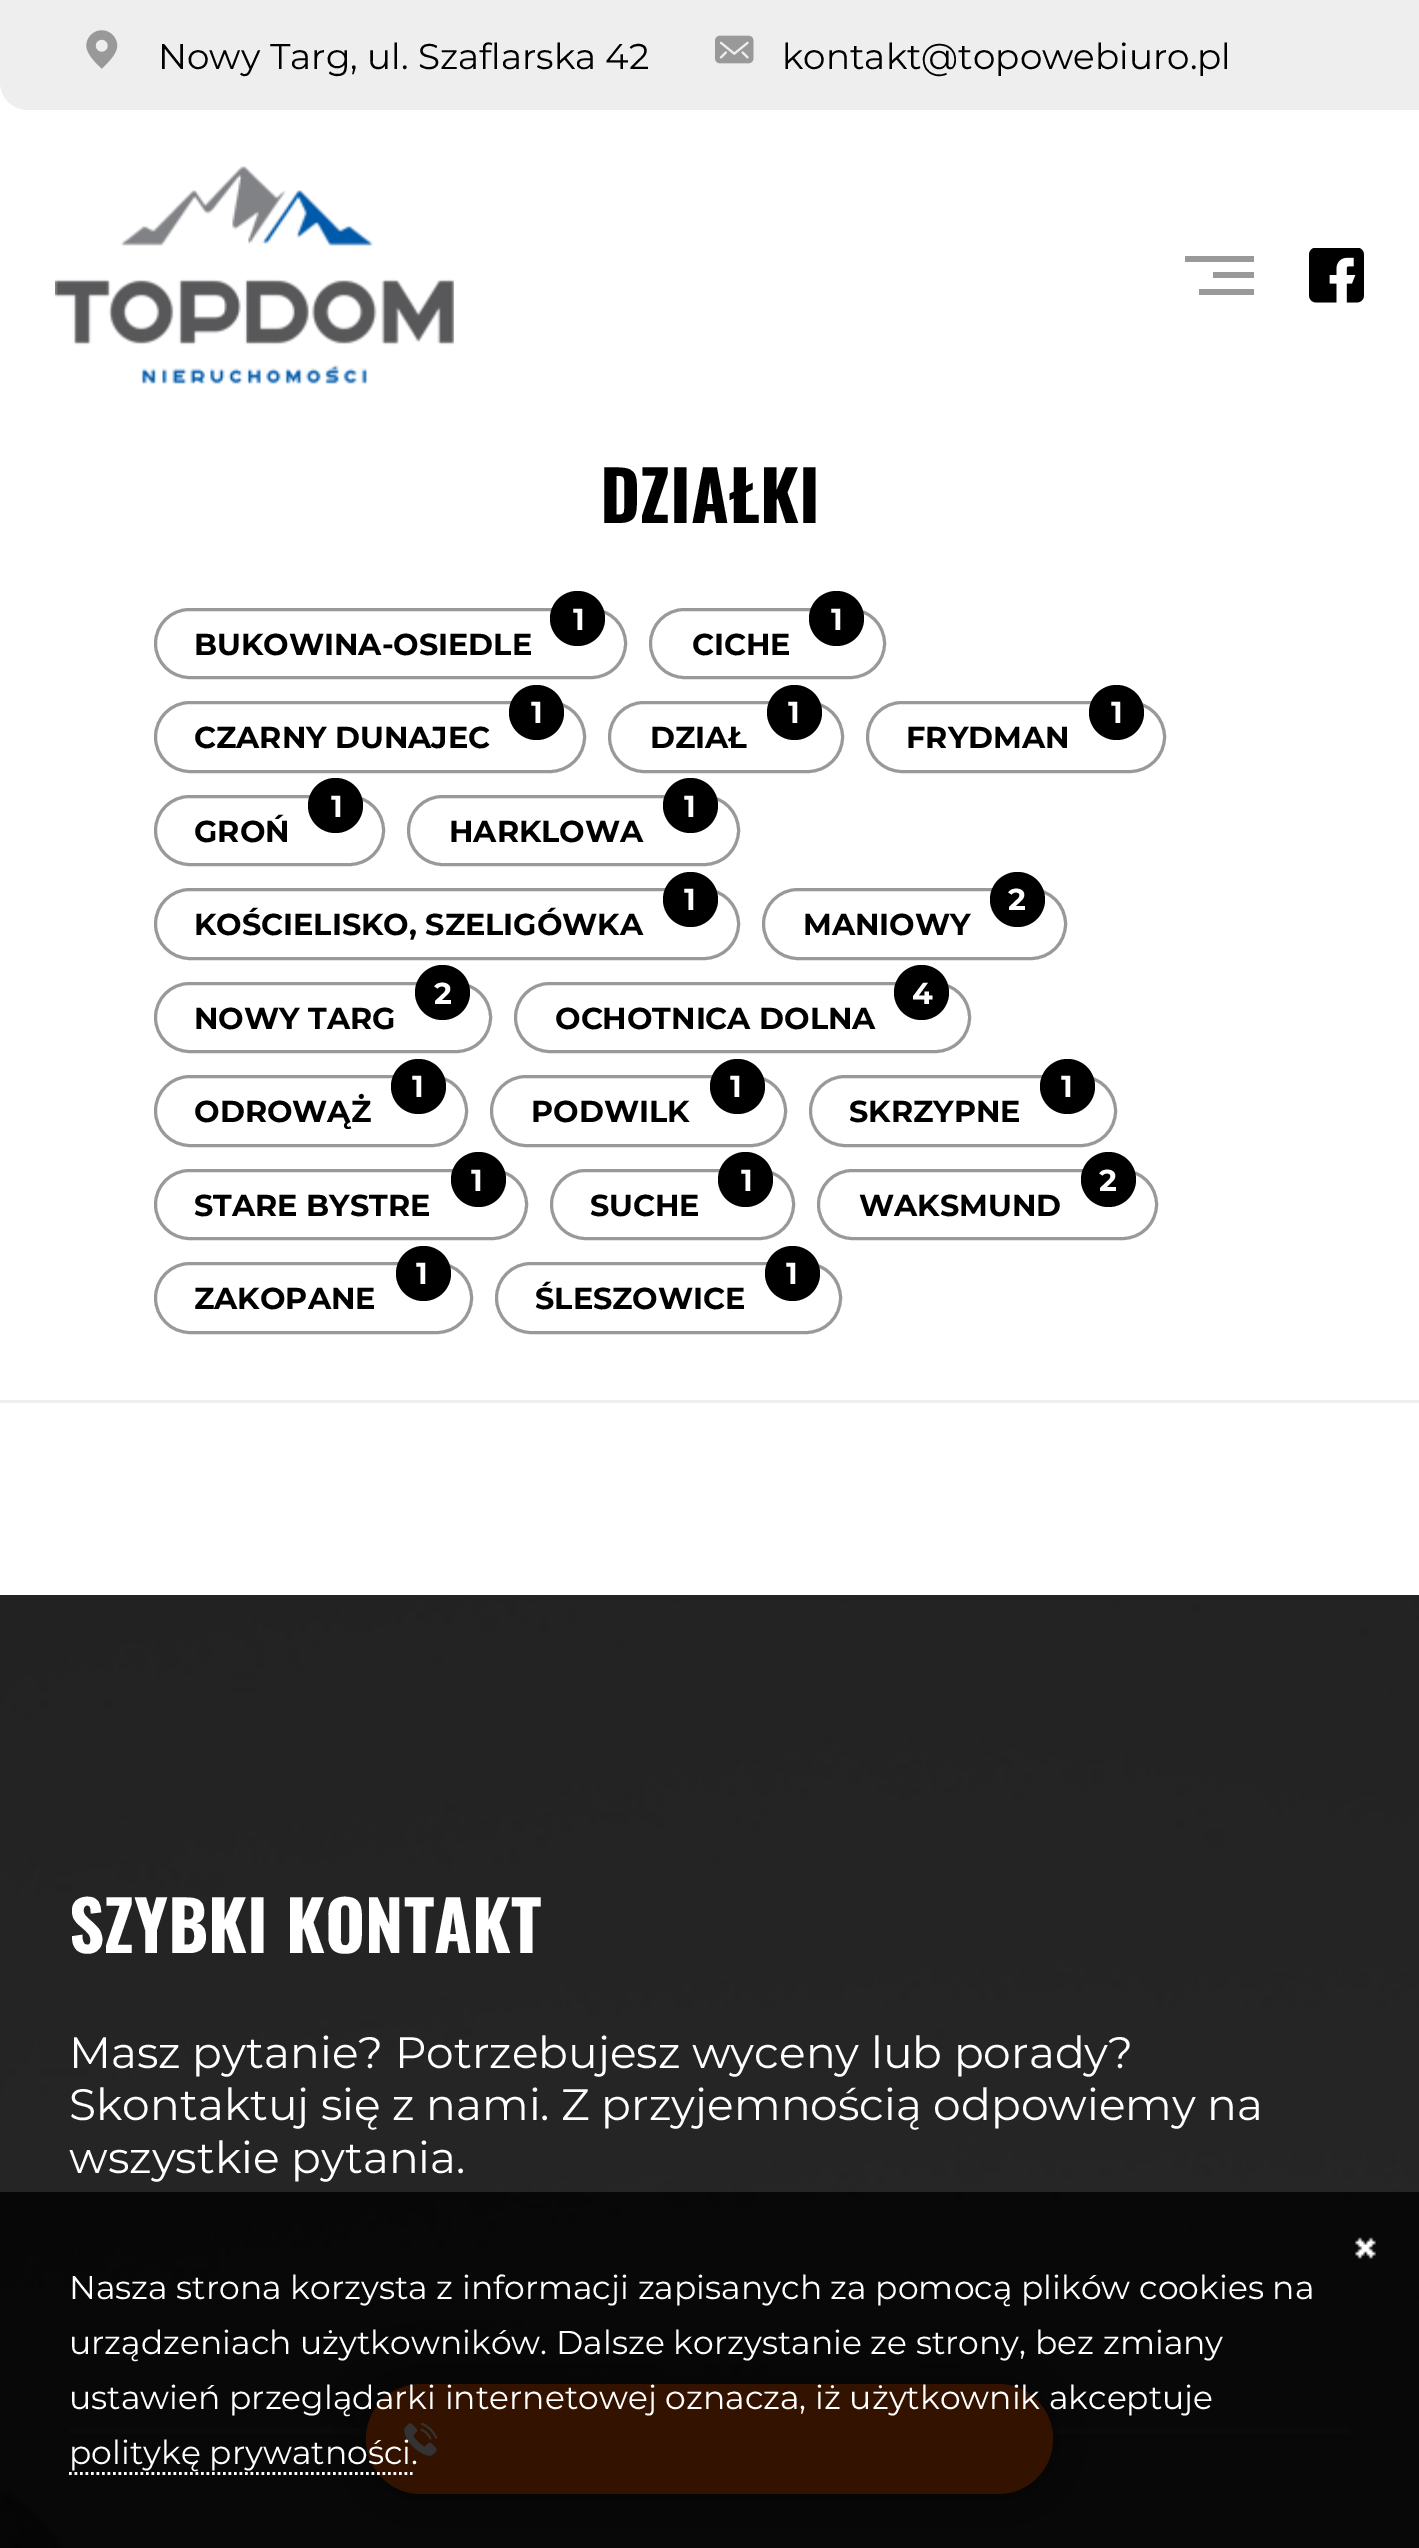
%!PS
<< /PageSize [1419 2548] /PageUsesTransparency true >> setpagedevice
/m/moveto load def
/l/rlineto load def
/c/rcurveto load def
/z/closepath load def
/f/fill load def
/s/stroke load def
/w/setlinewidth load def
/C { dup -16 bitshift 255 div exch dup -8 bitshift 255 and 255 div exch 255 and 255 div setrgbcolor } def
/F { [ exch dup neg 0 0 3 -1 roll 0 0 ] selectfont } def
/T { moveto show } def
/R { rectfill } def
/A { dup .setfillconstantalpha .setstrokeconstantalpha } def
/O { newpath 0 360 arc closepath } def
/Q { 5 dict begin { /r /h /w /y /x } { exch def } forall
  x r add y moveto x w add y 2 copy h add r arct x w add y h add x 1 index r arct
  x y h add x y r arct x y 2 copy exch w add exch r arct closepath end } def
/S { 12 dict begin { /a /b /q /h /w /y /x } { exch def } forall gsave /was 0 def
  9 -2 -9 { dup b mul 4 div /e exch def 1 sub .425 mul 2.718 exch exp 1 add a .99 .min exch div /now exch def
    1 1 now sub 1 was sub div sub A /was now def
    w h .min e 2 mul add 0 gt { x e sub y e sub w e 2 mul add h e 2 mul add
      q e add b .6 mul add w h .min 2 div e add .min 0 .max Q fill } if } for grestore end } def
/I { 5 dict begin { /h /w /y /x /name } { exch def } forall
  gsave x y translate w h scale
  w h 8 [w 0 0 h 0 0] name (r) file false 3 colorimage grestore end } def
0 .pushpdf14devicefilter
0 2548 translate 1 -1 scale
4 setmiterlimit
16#FFFFFF C
0 0 1419 2548 R
16#EEEEEE C
0 0 m 1419 0 l 0 110 l -1391 0 l -15.5 0 -28 -12.5 -28 -28 c z f
(1.rgb) 86 30 32 39 I
/Montserrat-Regular 35.75 F
16#000000 C
(Nowy Targ, ul. Szaflarska 42) 158 69 T
(2.rgb) 715 35 39 29 I
(kontakt@topowebiuro.pl) 782 69 T
(3.rgb) 55 166 399 218 I
16#999999 C
1185 256 69 6 R
1213 272 41 6 R
1199 289 55 6 R
(4.rgb) 1309 248 55 55 I
/Oswald-Bold 68.75 F
16#000000 C
(DZIAŁKI) 600 523 T
16#EEEEEE C
0 1400 1419 3 R
16#999999 C
3 w
155.5 609.5 470 68 34 Q s
16#000000 C
577.5 618.5 27.5 O f
/Montserrat-Bold 30.25 F
16#FFFFFF C
(1) 573 630 T
16#000000 C
(BUKOWINA-OSIEDLE) 194 655 T
16#999999 C
650.5 609.5 234 68 34 Q s
16#000000 C
836.5 618.5 27.5 O f
16#FFFFFF C
(1) 831 630 T
16#000000 C
(CICHE) 692 655 T
16#999999 C
155.5 702.5 429 69 34.5 Q s
16#000000 C
536.5 712.5 27.5 O f
16#FFFFFF C
(1) 531 723 T
16#000000 C
(CZARNY DUNAJEC) 194 748 T
16#999999 C
609.5 702.5 233 69 34.5 Q s
16#000000 C
794.5 712.5 27.5 O f
16#FFFFFF C
(1) 788 723 T
16#000000 C
(DZIAŁ) 650 748 T
16#999999 C
867.5 702.5 297 69 34.5 Q s
16#000000 C
1116.5 712.5 27.5 O f
16#FFFFFF C
(1) 1111 723 T
16#000000 C
(FRYDMAN) 906 748 T
16#999999 C
155.5 796.5 228 68 34 Q s
16#000000 C
335.5 805.5 27.5 O f
16#FFFFFF C
(1) 331 817 T
16#000000 C
(GROŃ) 194 842 T
16#999999 C
408.5 796.5 330 68 34 Q s
16#000000 C
690.5 805.5 27.5 O f
16#FFFFFF C
(1) 684 817 T
16#000000 C
(HARKLOWA) 449 842 T
16#999999 C
155.5 889.5 583 69 34.5 Q s
16#000000 C
690.5 899.5 27.5 O f
16#FFFFFF C
(1) 684 910 T
16#000000 C
(KOŚCIELISKO, SZELIGÓWKA) 194 935 T
16#999999 C
763.5 889.5 302 69 34.5 Q s
16#000000 C
1017.5 899.5 27.5 O f
16#FFFFFF C
(2) 1008 910 T
16#000000 C
(MANIOWY) 803 935 T
16#999999 C
155.5 983.5 335 68 34 Q s
16#000000 C
442.5 992.5 27.5 O f
16#FFFFFF C
(2) 434 1004 T
16#000000 C
(NOWY TARG) 194 1029 T
16#999999 C
515.5 983.5 454 68 34 Q s
16#000000 C
921.5 992.5 27.5 O f
16#FFFFFF C
(4) 912 1004 T
16#000000 C
(OCHOTNICA DOLNA) 555 1029 T
16#999999 C
155.5 1076.5 311 69 34.5 Q s
16#000000 C
418.5 1086.5 27.5 O f
16#FFFFFF C
(1) 412 1097 T
16#000000 C
(ODROWĄŻ) 194 1122 T
16#999999 C
491.5 1076.5 294 69 34.5 Q s
16#000000 C
737.5 1086.5 27.5 O f
16#FFFFFF C
(1) 730 1097 T
16#000000 C
(PODWILK) 531 1122 T
16#999999 C
810.5 1076.5 305 69 34.5 Q s
16#000000 C
1067.5 1086.5 27.5 O f
16#FFFFFF C
(1) 1061 1097 T
16#000000 C
(SKRZYPNE) 849 1122 T
16#999999 C
155.5 1170.5 371 68 34 Q s
16#000000 C
478.5 1179.5 27.5 O f
16#FFFFFF C
(1) 471 1191 T
16#000000 C
(STARE BYSTRE) 194 1216 T
16#999999 C
551.5 1170.5 242 68 34 Q s
16#000000 C
745.5 1179.5 27.5 O f
16#FFFFFF C
(1) 741 1191 T
16#000000 C
(SUCHE) 590 1216 T
16#999999 C
818.5 1170.5 338 68 34 Q s
16#000000 C
1108.5 1179.5 27.5 O f
16#FFFFFF C
(2) 1099 1191 T
16#000000 C
(WAKSMUND) 859 1216 T
16#999999 C
155.5 1263.5 316 69 34.5 Q s
16#000000 C
423.5 1273.5 27.5 O f
16#FFFFFF C
(1) 416 1284 T
16#000000 C
(ZAKOPANE) 194 1309 T
16#999999 C
496.5 1263.5 344 69 34.5 Q s
16#000000 C
792.5 1273.5 27.5 O f
16#FFFFFF C
(1) 786 1284 T
16#000000 C
(ŚLESZOWICE) 535 1309 T
(5.rgb) 0 1595 1419 953 I
/Oswald-Bold 68.75 F
16#FFFFFF C
(SZYBKI KONTAKT) 69 1953 T
/Montserrat-Regular 44 F
(Masz pytanie? Potrzebujesz wyceny lub porady?) 69 2068 T
(Skontaktuj się z nami. Z przyjemnością odpowiemy na) 69 2120 T
(wszystkie pytania.) 69 2173 T
16#333333 C
69 2428 1281 6 R
16#000000 C
366 2384 687 110 55 27.5 .5 S
16#FF5B01 C
366 2384 687 110 55 Q f
(6.rgb) 404 2423 33 33 I
0.8 A
16#000000 C
0 2192 1419 356 R
1 A
(7.rgb) 1355 2237 21 22 I
/Montserrat-Regular 33 F
16#FFFFFF C
(Nasza strona korzysta z informacji zapisanych za pomocą plików cookies na) 69 2299 T
(urządzeniach użytkowników. Dalsze korzystanie ze strony, bez zmiany) 69 2354 T
(ustawień przeglądarki internetowej oznacza, iż użytkownik akceptuje) 69 2409 T
(politykę prywatności.) 69 2464 T
2.8 w
[2.75 2.75] 0 setdash
69 2473.5 m 343.5 0 l s
.poppdf14devicefilter showpage
